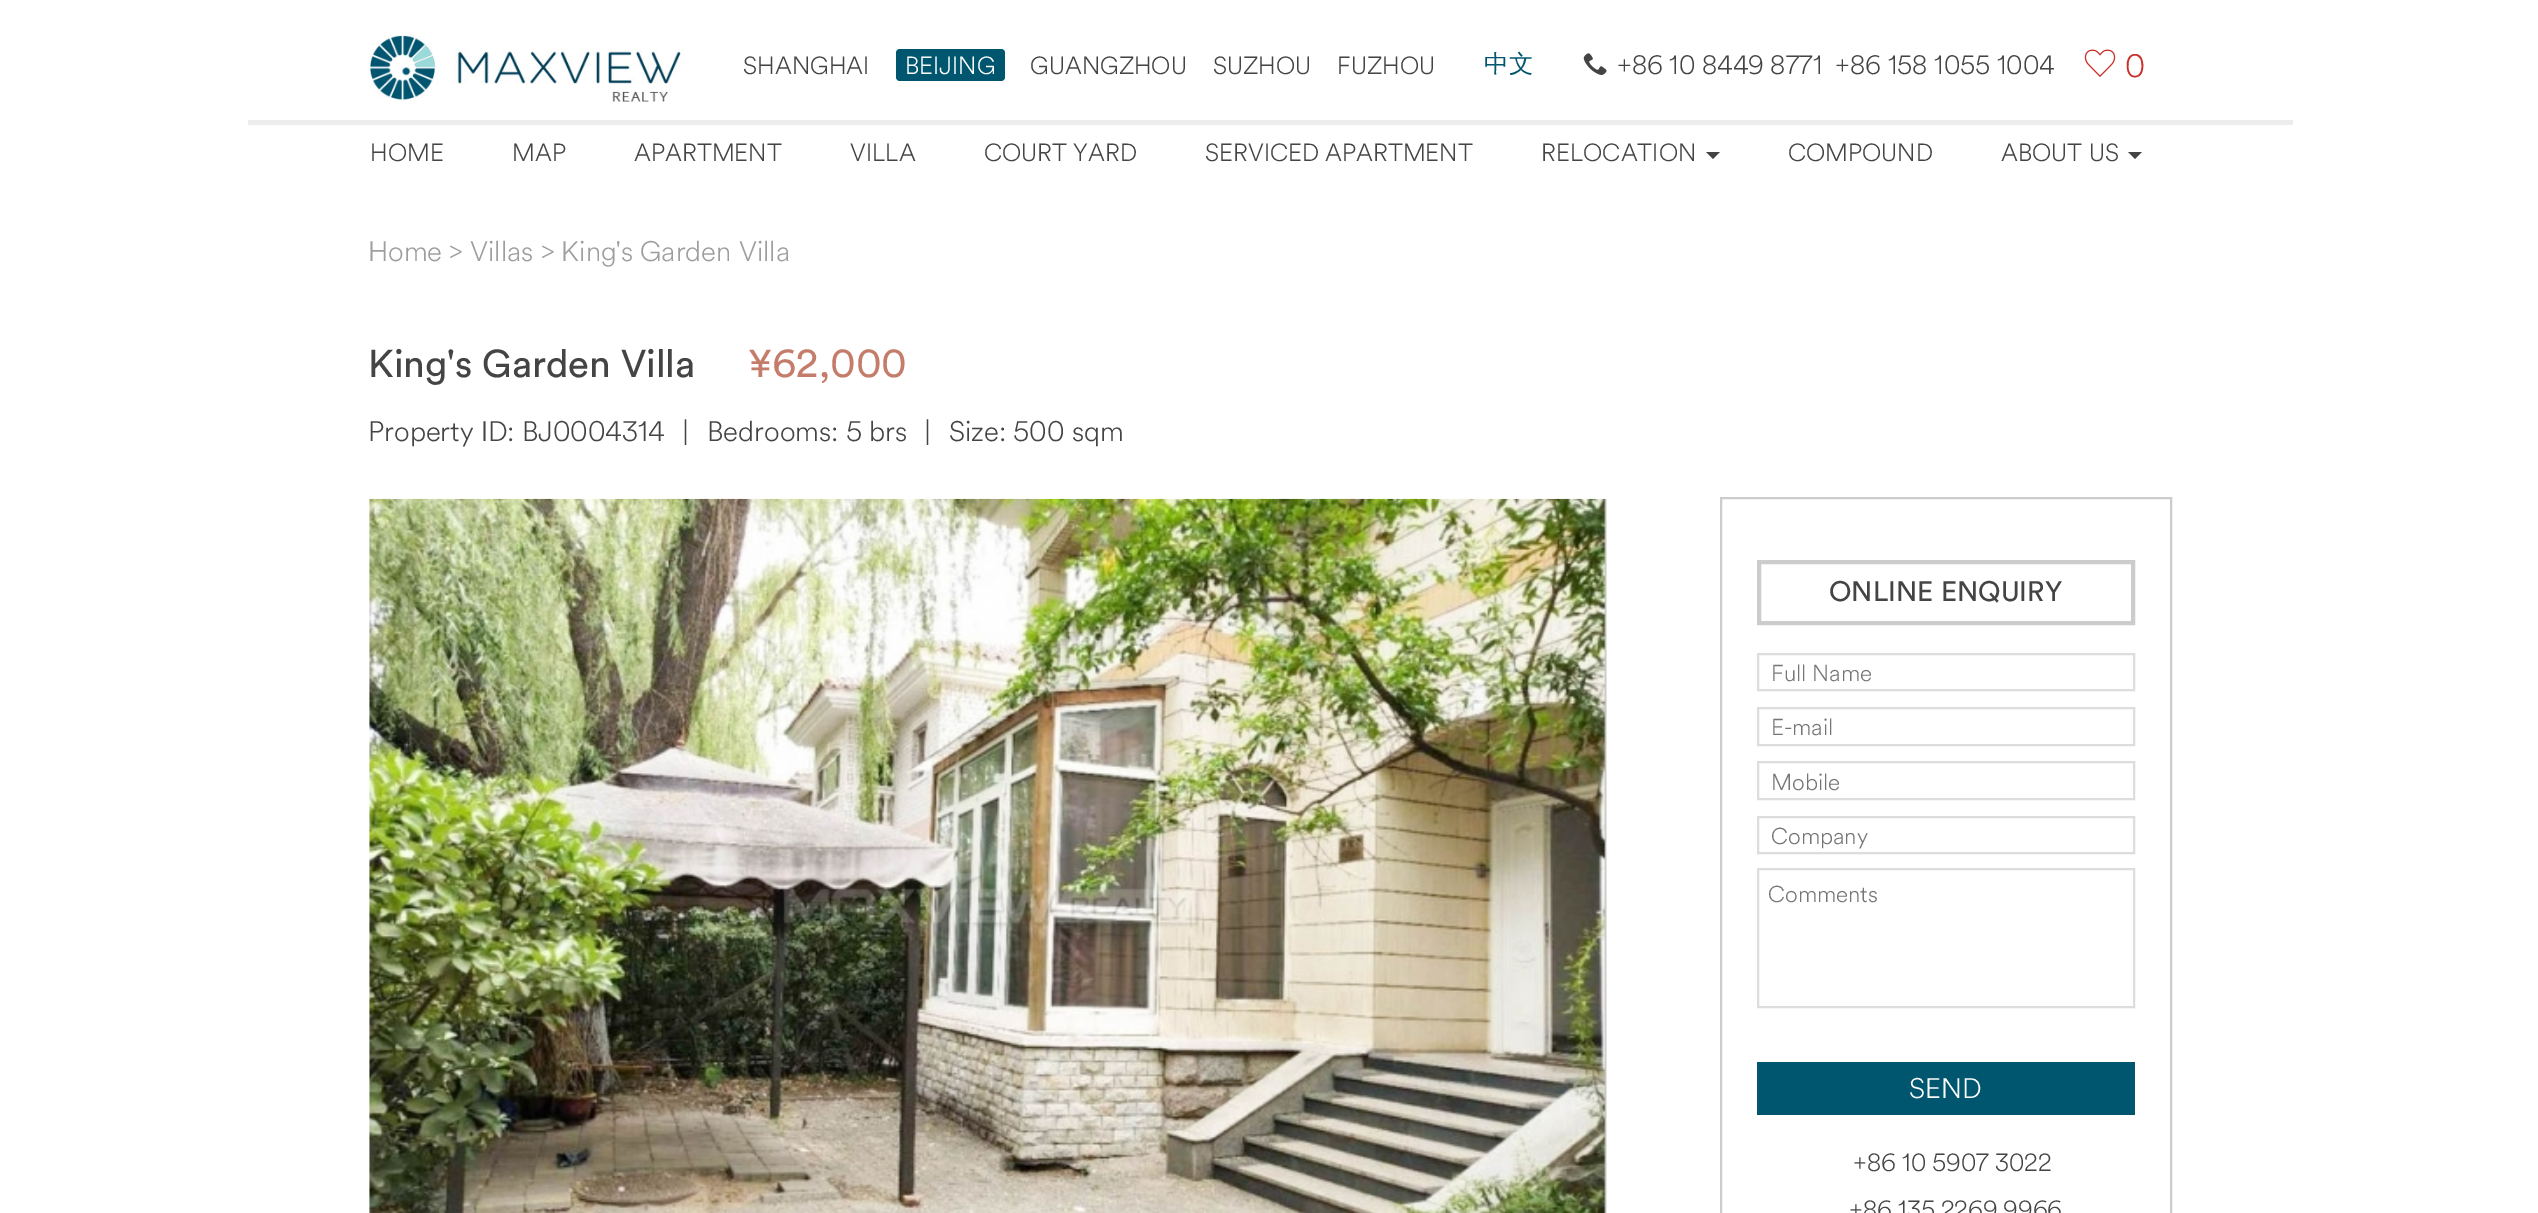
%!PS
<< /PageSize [2538 1213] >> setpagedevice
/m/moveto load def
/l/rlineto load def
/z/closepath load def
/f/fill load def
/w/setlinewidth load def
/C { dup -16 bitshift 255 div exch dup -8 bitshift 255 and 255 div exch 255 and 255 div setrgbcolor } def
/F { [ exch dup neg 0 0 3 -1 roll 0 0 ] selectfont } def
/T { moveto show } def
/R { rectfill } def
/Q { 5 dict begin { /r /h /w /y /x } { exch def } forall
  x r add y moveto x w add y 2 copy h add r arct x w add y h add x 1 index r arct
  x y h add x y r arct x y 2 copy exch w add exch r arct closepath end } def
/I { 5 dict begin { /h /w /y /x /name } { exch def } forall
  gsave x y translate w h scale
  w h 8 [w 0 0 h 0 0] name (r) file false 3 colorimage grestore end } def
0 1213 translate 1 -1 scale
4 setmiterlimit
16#FFFFFF C
0 0 2538 1213 R
(1.rgb) 369 35 315 67 I
/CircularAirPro-Light 24.5 F
16#444444 C
(SHANGHAI) 743 74 T
16#00566F C
896 49 109 32 4 Q f
16#FFFFFF C
(BEIJING) 905 74 T
16#444444 C
(GUANGZHOU) 1030 74 T
(SUZHOU) 1213 74 T
(FUZHOU) 1337 74 T
/WenQuanYiZenHei-Medium 24.5 F
16#00566F C
(中文) 1484 72 T
(2.rgb) 1583 53 24 22 I
/CircularAirPro-Light 26.25 F
16#444444 C
(+86 10 8449 8771  +86 158 1055 1004) 1617 74 T
(3.rgb) 2084 49 32 28 I
/CircularAirPro-Light 32 F
16#C9302C C
(0) 2125 77 T
16#EDEDED C
248 120 2045 5 R
/CircularAirPro-Light 24.5 F
16#444444 C
(HOME) 370 161 T
(MAP) 512 161 T
(APARTMENT) 634 161 T
(VILLA) 850 161 T
(COURT YARD) 984 161 T
(SERVICED APARTMENT) 1205 161 T
(RELOCATION) 1541 161 T
1706 152 m 14 0 l -7 7 l z f
(COMPOUND) 1788 161 T
(ABOUT US) 2001 161 T
2128 152 m 14 0 l -7 7 l z f
/CircularAirPro-Light 28 F
16#9E9E9E C
(Home > Villas > King's Garden Villa) 368 261 T
/CircularAirPro-Regular 38.5 F
16#444444 C
(King's Garden Villa) 368 377 T
16#C47D6B C
(¥62,000) 748 377 T
/CircularAirPro-Light 28 F
16#444444 C
(Property ID: BJ0004314) 368 441 T
(|) 682 441 T
(Bedrooms: 5 brs) 707 441 T
(|) 924 441 T
(Size: 500 sqm) 949 441 T
(4.rgb) 369 498 1238 715 I
16#CCCCCC C
2 w
1721 498 450 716 rectstroke
4 w
1759 562 374 61 rectstroke
/CircularAirPro-Regular 28 F
16#444444 C
(ONLINE ENQUIRY) 1829 601 T
16#DDDDDD C
2 w
1758 654 376 36 rectstroke
/CircularAirPro-Light 22.75 F
16#757575 C
(Full Name) 1771 681 T
16#DDDDDD C
1758 708 376 37 rectstroke
16#757575 C
(E-mail) 1771 735 T
16#DDDDDD C
1758 762 376 37 rectstroke
16#757575 C
(Mobile) 1771 790 T
16#DDDDDD C
1758 817 376 36 rectstroke
16#757575 C
(Company) 1771 844 T
16#DDDDDD C
1758 869 376 138 rectstroke
16#757575 C
(Comments) 1768 902 T
16#00566F C
1757 1062 378 53 R
/CircularAirPro-Light 28 F
16#FFFFFF C
(SEND) 1909 1098 T
/CircularAirPro-Light 24.5 F
16#444444 C
(+86 10 5907 3022) 1853 1171 T
(+86 135 2269 9966) 1849 1218 T
showpage
